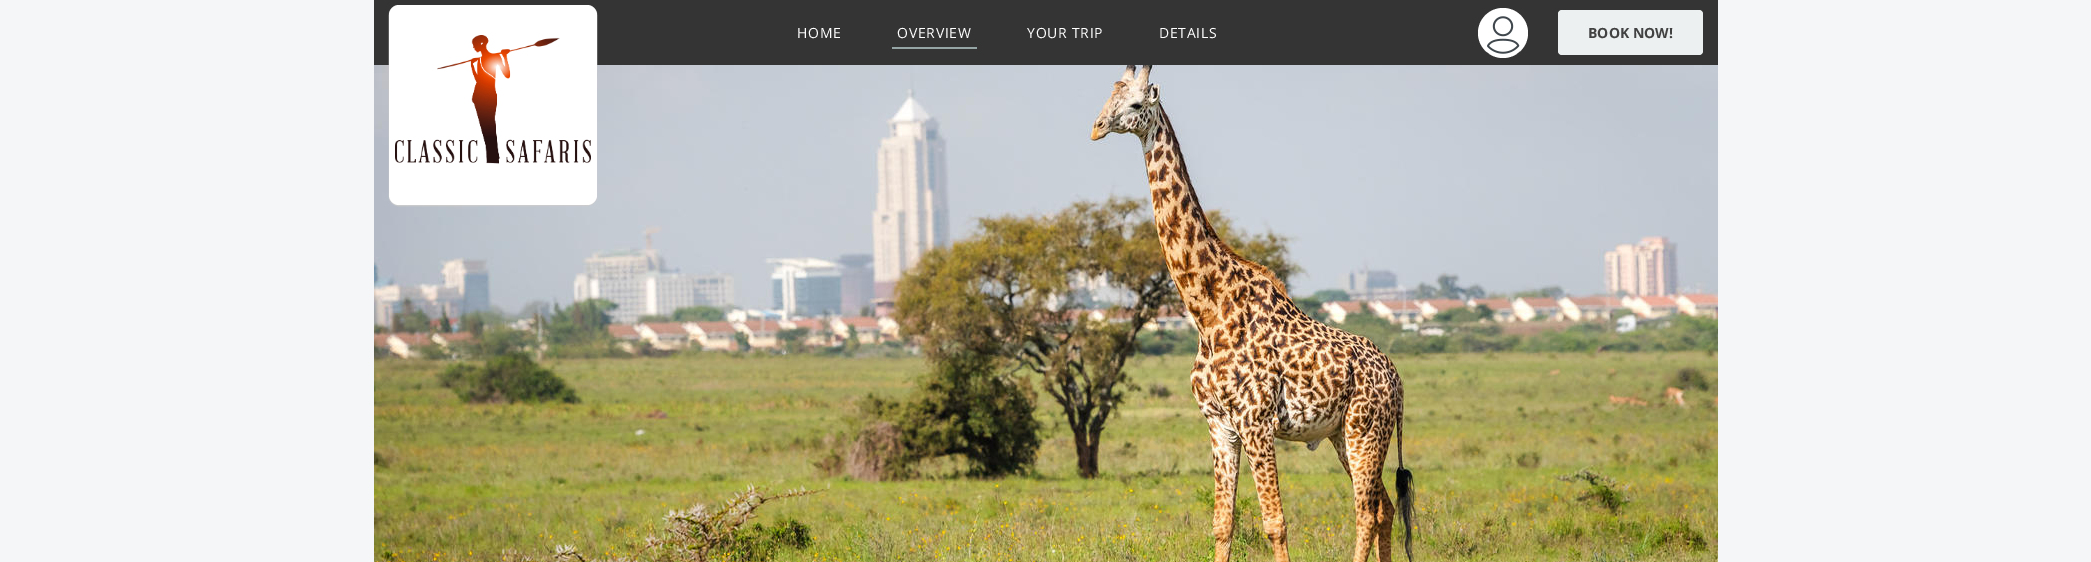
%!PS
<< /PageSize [2091 562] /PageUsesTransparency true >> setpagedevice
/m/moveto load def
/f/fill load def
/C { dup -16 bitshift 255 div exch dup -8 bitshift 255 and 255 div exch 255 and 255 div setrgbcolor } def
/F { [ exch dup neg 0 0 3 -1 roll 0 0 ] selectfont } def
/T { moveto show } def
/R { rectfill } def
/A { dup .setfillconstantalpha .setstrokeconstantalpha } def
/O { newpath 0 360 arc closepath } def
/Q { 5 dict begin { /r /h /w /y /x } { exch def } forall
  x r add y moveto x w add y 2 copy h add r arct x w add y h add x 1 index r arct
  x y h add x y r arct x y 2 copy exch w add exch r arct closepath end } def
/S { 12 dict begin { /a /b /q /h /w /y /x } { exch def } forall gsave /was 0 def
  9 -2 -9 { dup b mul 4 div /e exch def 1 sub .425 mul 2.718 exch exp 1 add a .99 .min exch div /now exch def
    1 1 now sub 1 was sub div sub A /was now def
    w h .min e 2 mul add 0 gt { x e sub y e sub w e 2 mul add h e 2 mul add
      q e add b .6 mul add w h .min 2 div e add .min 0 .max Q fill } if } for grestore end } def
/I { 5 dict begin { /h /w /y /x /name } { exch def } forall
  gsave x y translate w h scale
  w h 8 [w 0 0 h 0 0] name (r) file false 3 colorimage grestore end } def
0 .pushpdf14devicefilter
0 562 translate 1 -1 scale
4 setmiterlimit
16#F5F6F7 C
0 0 2091 562 R
16#333433 C
374 0 1344 65 R
(3.rgb) 374 65 1344 497 I
16#CCCCCC C
389 6 208 200 10 .5 1 S
16#FFFFFF C
389 5 208 200 10 Q f
(1.rgb) 395 35 196 129 I
/OpenSans-Regular 14 F
797 38 m .75 0 (HOME) ashow
897 38 m .75 0 (OVERVIEW) ashow
16#95A5A6 C
892 47 85 2 R
16#FFFFFF C
1027 38 m .75 0 (YOUR TRIP) ashow
1159 38 m .75 0 (DETAILS) ashow
1503 33 25 O f
(2.rgb) 1487 16 33 38 I
16#ECF0F1 C
1558 10 145 45 4 Q f
/OpenSans-Bold 14 F
16#424242 C
(BOOK NOW!) 1588 38 T
.poppdf14devicefilter showpage
